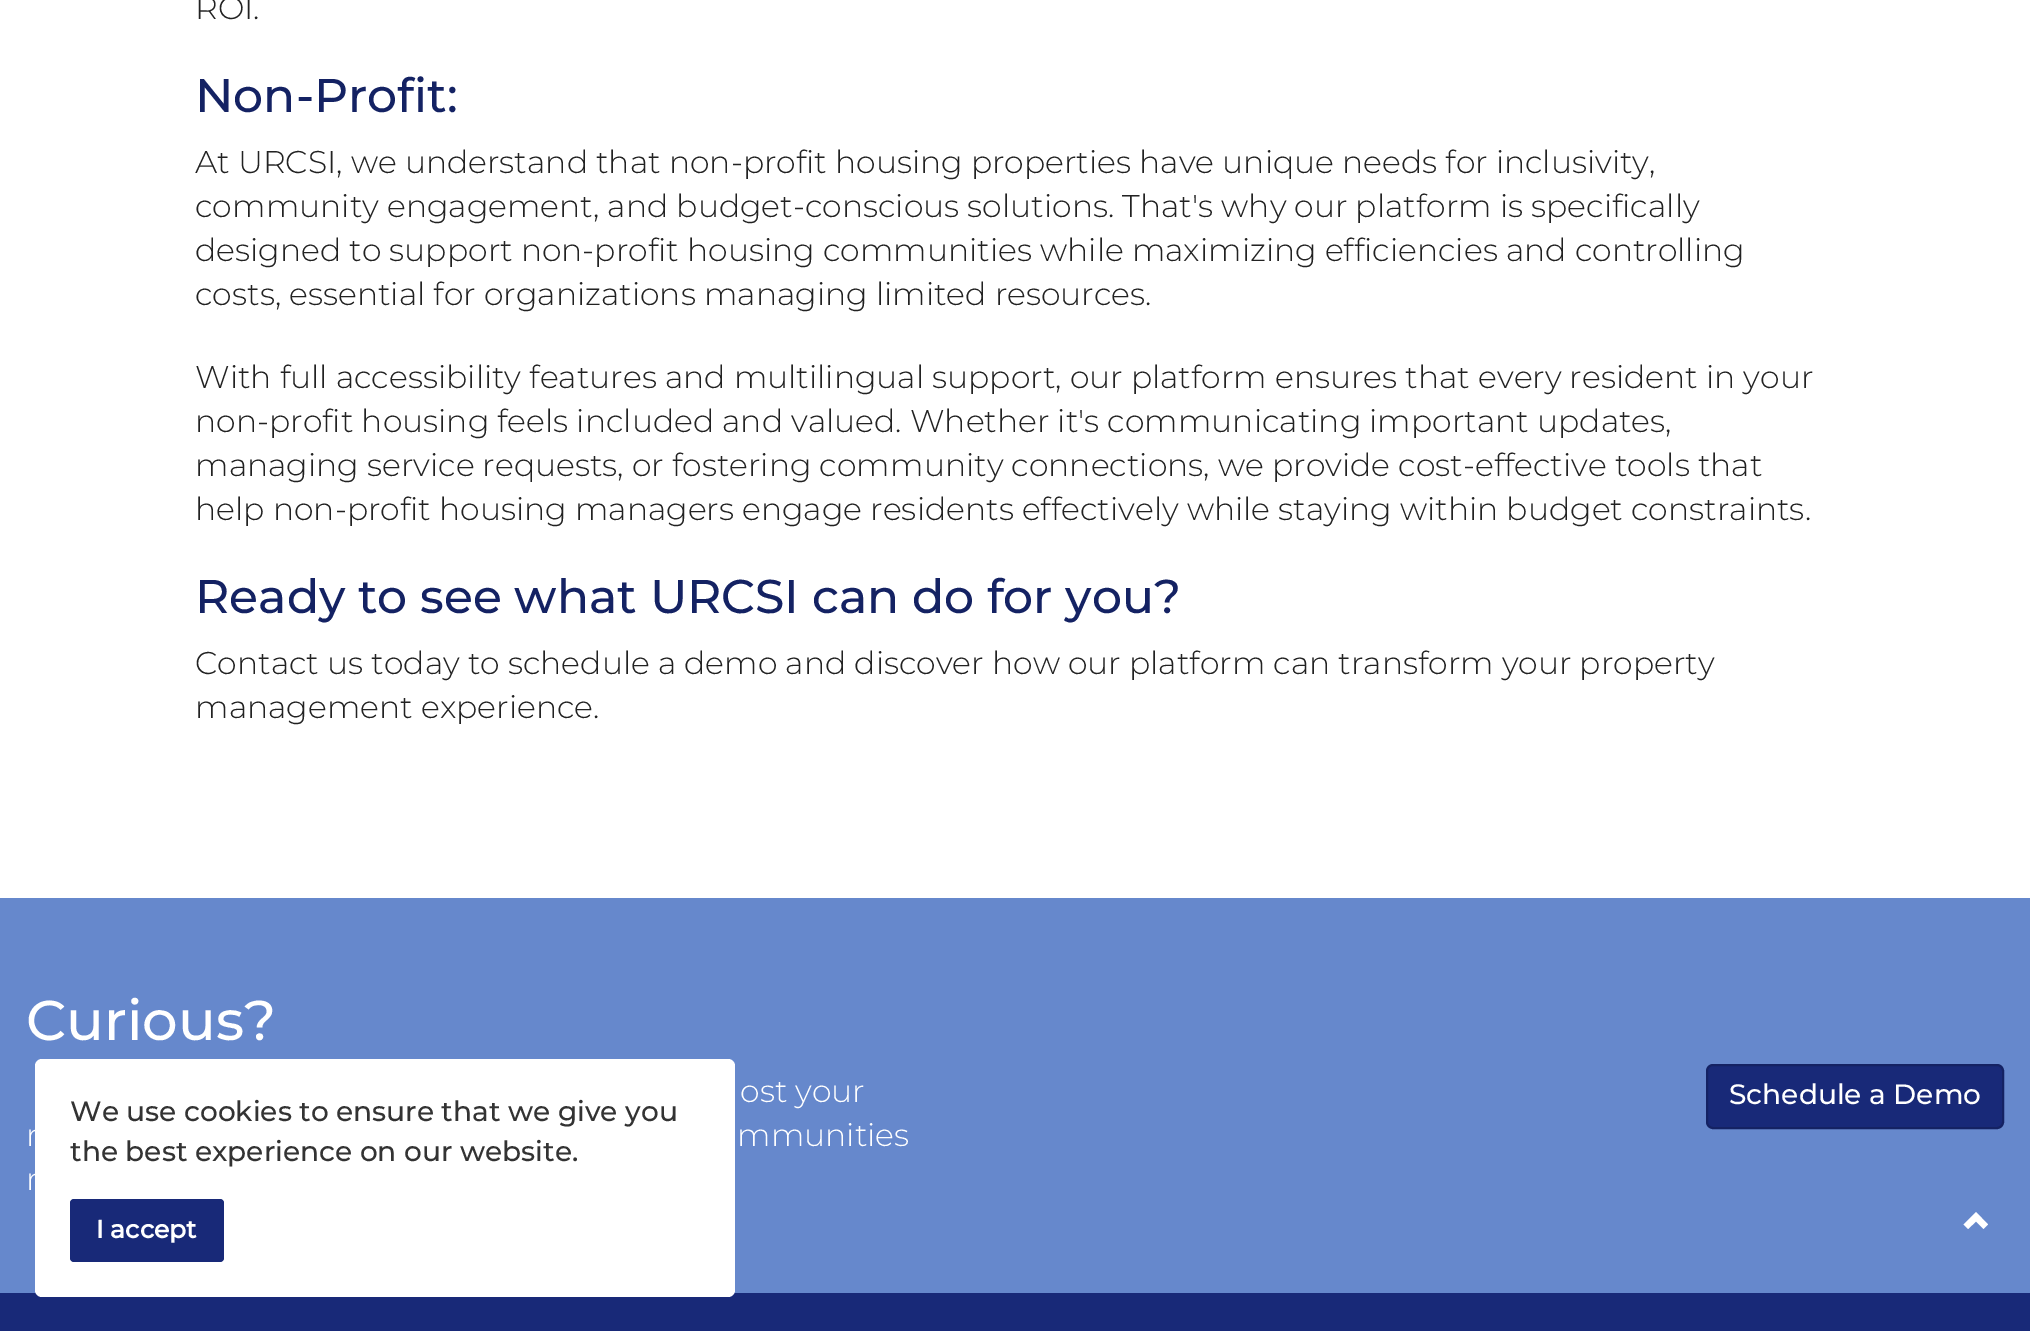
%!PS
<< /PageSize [2030 1331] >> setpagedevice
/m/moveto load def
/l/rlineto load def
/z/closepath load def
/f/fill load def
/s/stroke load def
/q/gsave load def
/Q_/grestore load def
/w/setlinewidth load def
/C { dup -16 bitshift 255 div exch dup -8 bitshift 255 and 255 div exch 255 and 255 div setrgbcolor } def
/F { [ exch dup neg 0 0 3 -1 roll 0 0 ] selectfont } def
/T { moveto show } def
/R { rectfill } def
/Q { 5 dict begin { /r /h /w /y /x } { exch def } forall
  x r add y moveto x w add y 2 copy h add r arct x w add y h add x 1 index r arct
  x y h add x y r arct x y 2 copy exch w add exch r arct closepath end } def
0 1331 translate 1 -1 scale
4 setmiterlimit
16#FFFFFF C
0 0 2030 1331 R
/Montserrat-Light 31.5 F
16#222222 C
(ROI.) 195 19 T
/Montserrat-Medium 47.25 F
16#142263 C
(Non-Profit:) 195 112 T
/Montserrat-Light 31.5 F
16#222222 C
(At URCSI, we understand that non-profit housing properties have unique needs for inclusivity,) 195 173 T
(community engagement, and budget-conscious solutions. That's why our platform is specifically) 195 217 T
(designed to support non-profit housing communities while maximizing efficiencies and controlling) 195 261 T
(costs, essential for organizations managing limited resources.) 195 305 T
(With full accessibility features and multilingual support, our platform ensures that every resident in your) 195 388 T
(non-profit housing feels included and valued. Whether it's communicating important updates,) 195 432 T
(managing service requests, or fostering community connections, we provide cost-effective tools that) 195 476 T
(help non-profit housing managers engage residents effectively while staying within budget constraints.) 195 520 T
/Montserrat-Medium 47.25 F
16#142263 C
(Ready to see what URCSI can do for you?) 195 613 T
/Montserrat-Light 31.5 F
16#222222 C
(Contact us today to schedule a demo and discover how our platform can transform your property) 195 674 T
(management experience.) 195 718 T
16#6688CC C
0 898 2030 395 R
/Montserrat-Medium 56 F
16#FFFFFF C
(Curious?) 26 1040 T
/Montserrat-Light 31.5 F
(ost your) 740 1102 T
(r) 26 1146 T
(mmunities) 737 1146 T
(r) 26 1190 T
16#182978 C
1707 1065 296 63 6 Q q f Q_
16#142263 C
2 w
s
/Montserrat-Medium 28 F
16#FFFFFF C
(Schedule a Demo) 1729 1104 T
16#182978 C
0 1293 2030 38 R
16#FFFFFF C
1963.5 1224.5 m 12.5 -12.5 l 12 12.5 l -4.5 4.5 l -7.5 -7.5 l -8 7.5 l z f
35 1059 700 238 7 Q f
16#333333 C
(We use cookies to ensure that we give you) 70 1121 T
(the best experience on our website.) 70 1161 T
16#182978 C
70 1199 154 63 4 Q f
/Montserrat-Bold 25 F
16#FFFFFF C
(I accept) 96 1238 T
showpage
